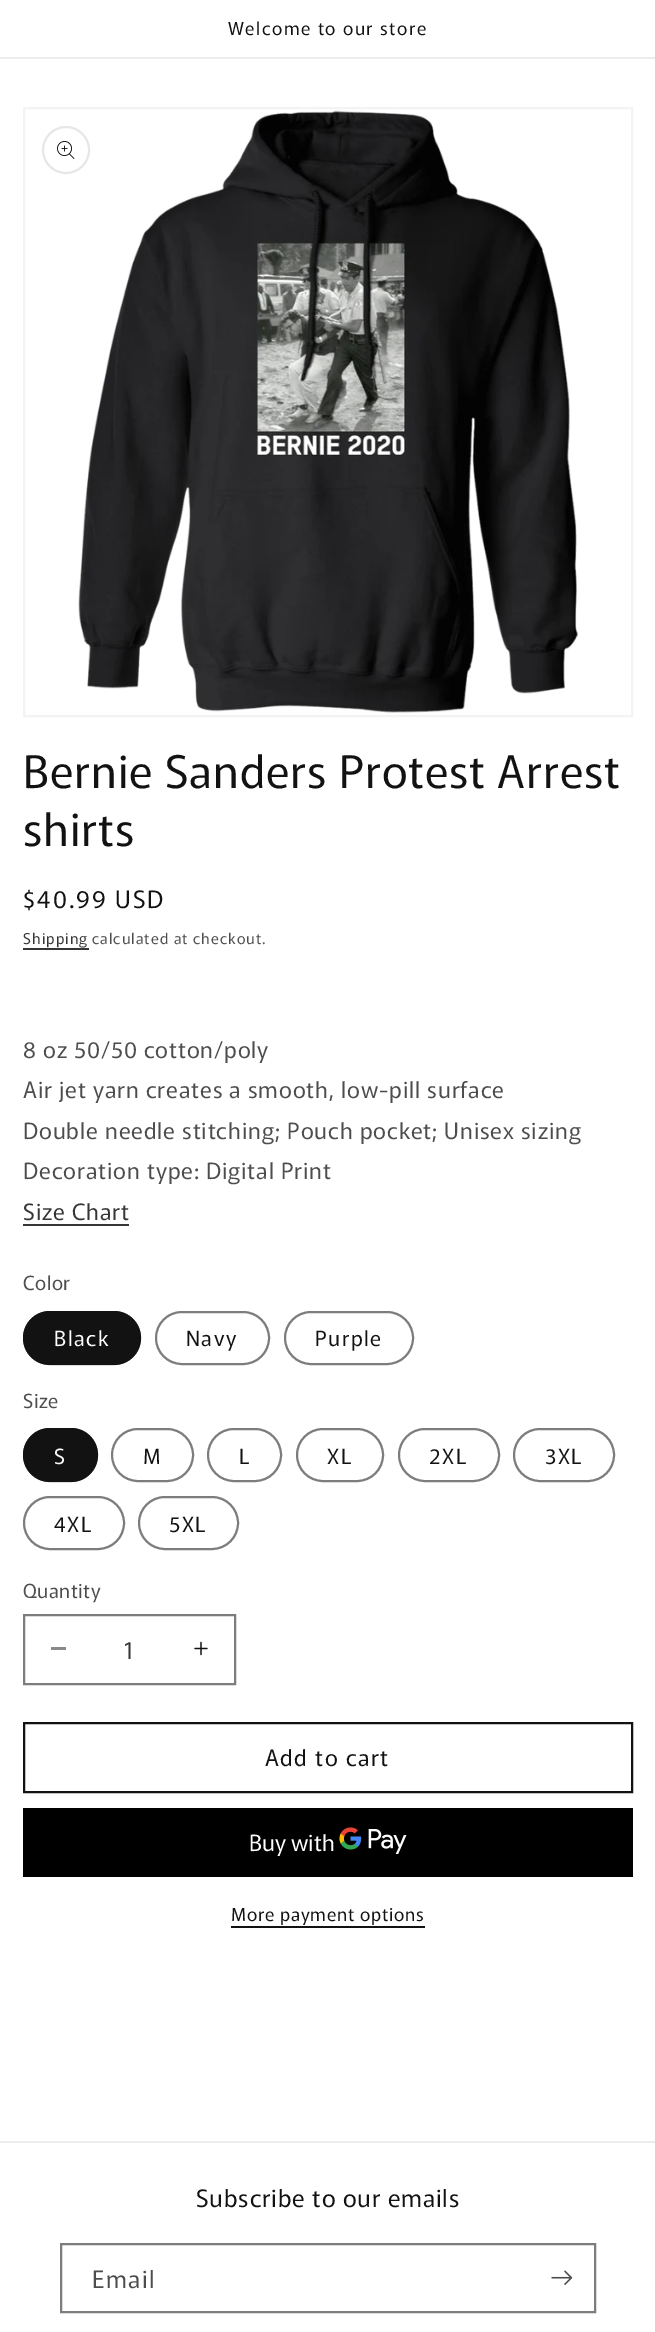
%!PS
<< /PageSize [655 2332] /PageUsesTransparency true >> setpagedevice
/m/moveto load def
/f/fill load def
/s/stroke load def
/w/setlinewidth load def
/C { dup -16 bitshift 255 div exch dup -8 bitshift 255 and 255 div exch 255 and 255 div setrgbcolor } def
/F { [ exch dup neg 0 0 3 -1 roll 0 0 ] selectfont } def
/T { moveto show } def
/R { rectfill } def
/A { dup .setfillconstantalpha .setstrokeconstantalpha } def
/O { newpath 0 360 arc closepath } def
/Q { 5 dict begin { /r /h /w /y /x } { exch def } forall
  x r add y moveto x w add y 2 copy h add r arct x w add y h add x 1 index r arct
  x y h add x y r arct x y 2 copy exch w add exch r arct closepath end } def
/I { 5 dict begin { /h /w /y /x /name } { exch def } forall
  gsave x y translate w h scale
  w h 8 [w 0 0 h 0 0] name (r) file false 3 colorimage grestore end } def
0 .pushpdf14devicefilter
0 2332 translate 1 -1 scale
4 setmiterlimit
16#FFFFFF C
0 0 655 2332 R
16#ECECEC C
0 57 655 2 R
/Murecho-Regular 18 F
16#121212 C
228 35 m 1.5 0 (Welcome to our store) ashow
16#F3F3F3 C
2 w
24 108 608 608 rectstroke
(2.rgb) 78 110 500 603 I
16#E7E7E7 C
66 150 23 O s
(1.rgb) 57 141 18 18 I
/Murecho-Regular 45 F
16#121212 C
23 788 m .9 0 (Bernie Sanders Protest Arrest) ashow
23 846 m .9 0 (shirts) ashow
/Murecho-Regular 24 F
23 908 m 2 0 ($40.99 USD) ashow
/Murecho-Regular 15 F
16#363636 C
23 944 m 1.05 0 (Shipping) ashow
23 948 66 2 R
16#4D4D4D C
92 944 m 1.05 0 (calculated at checkout.) ashow
/Murecho-Regular 22.5 F
23 1058 m .9 0 (8 oz 50/50 cotton/poly) ashow
23 1098 m .9 0 (Air jet yarn creates a smooth, low-pill surface) ashow
23 1139 m .9 0 (Double needle stitching; Pouch pocket; Unisex sizing) ashow
23 1179 m .9 0 (Decoration type: Digital Print) ashow
16#363636 C
23 1220 m .9 0 (Size Chart) ashow
23 1224 106 2 R
/Murecho-Regular 19.5 F
16#4D4D4D C
23 1290 m .5 0 (Color) ashow
16#121212 C
23 1311 118 54 27 Q f
0.55 A
24 1312 116 52 26 Q s
/Murecho-Regular 21 F
1 A
16#FFFFFF C
54 1346 m 1.5 0 (Black) ashow
16#7D7D7D C
156 1312 113 52 26 Q s
16#121212 C
186 1346 m 1.5 0 (Navy) ashow
16#7D7D7D C
285 1312 128 52 26 Q s
16#121212 C
315 1346 m 1.5 0 (Purple) ashow
/Murecho-Regular 19.5 F
16#4D4D4D C
23 1408 m .5 0 (Size) ashow
16#121212 C
23 1428 75 54 27 Q f
0.55 A
24 1429 73 52 26 Q s
/Murecho-Regular 21 F
1 A
16#FFFFFF C
54 1464 m 1.5 0 (S) ashow
16#7D7D7D C
112 1429 81 52 26 Q s
16#121212 C
143 1464 m 1.5 0 (M) ashow
16#7D7D7D C
208 1429 73 52 26 Q s
16#121212 C
239 1464 m 1.5 0 (L) ashow
16#7D7D7D C
297 1429 86 52 26 Q s
16#121212 C
327 1464 m 1.5 0 (XL) ashow
16#7D7D7D C
399 1429 100 52 26 Q s
16#121212 C
429 1464 m 1.5 0 (2XL) ashow
16#7D7D7D C
514 1429 100 52 26 Q s
16#121212 C
545 1464 m 1.5 0 (3XL) ashow
16#7D7D7D C
24 1497 100 52 26 Q s
16#121212 C
54 1532 m 1.5 0 (4XL) ashow
16#7D7D7D C
139 1497 99 52 26 Q s
16#121212 C
169 1532 m 1.5 0 (5XL) ashow
/Murecho-Regular 19.5 F
16#4D4D4D C
23 1598 m .5 0 (Quantity) ashow
16#898989 C
51 1647 15 3 R
(3.rgb) 194 1641 14 15 I
16#7D7D7D C
24 1615 211 69 rectstroke
/Murecho-Regular 24 F
16#363636 C
(1) 123 1659 T
16#121212 C
24 1723 608 69 rectstroke
/Murecho-Regular 22.5 F
265 1766 m 1.5 0 (Add to cart) ashow
16#000000 C
23 1808 610 69 R
16#FFFFFF C
(Buy with) 249 1851 T
(4.rgb) 339 1827 68 27 I
/Murecho-Regular 18 F
16#121212 C
231 1921 m .75 0 (More payment options) ashow
231 1926 194 2 R
16#ECECEC C
0 2141 655 2 R
/Murecho-Regular 24 F
16#121212 C
196 2207 m .9 0 (Subscribe to our emails) ashow
16#7D7D7D C
61 2244 534 68 rectstroke
16#4D4D4D C
92 2288 m 1.5 0 (Email) ashow
(5.rgb) 551 2270 22 15 I
.poppdf14devicefilter showpage
